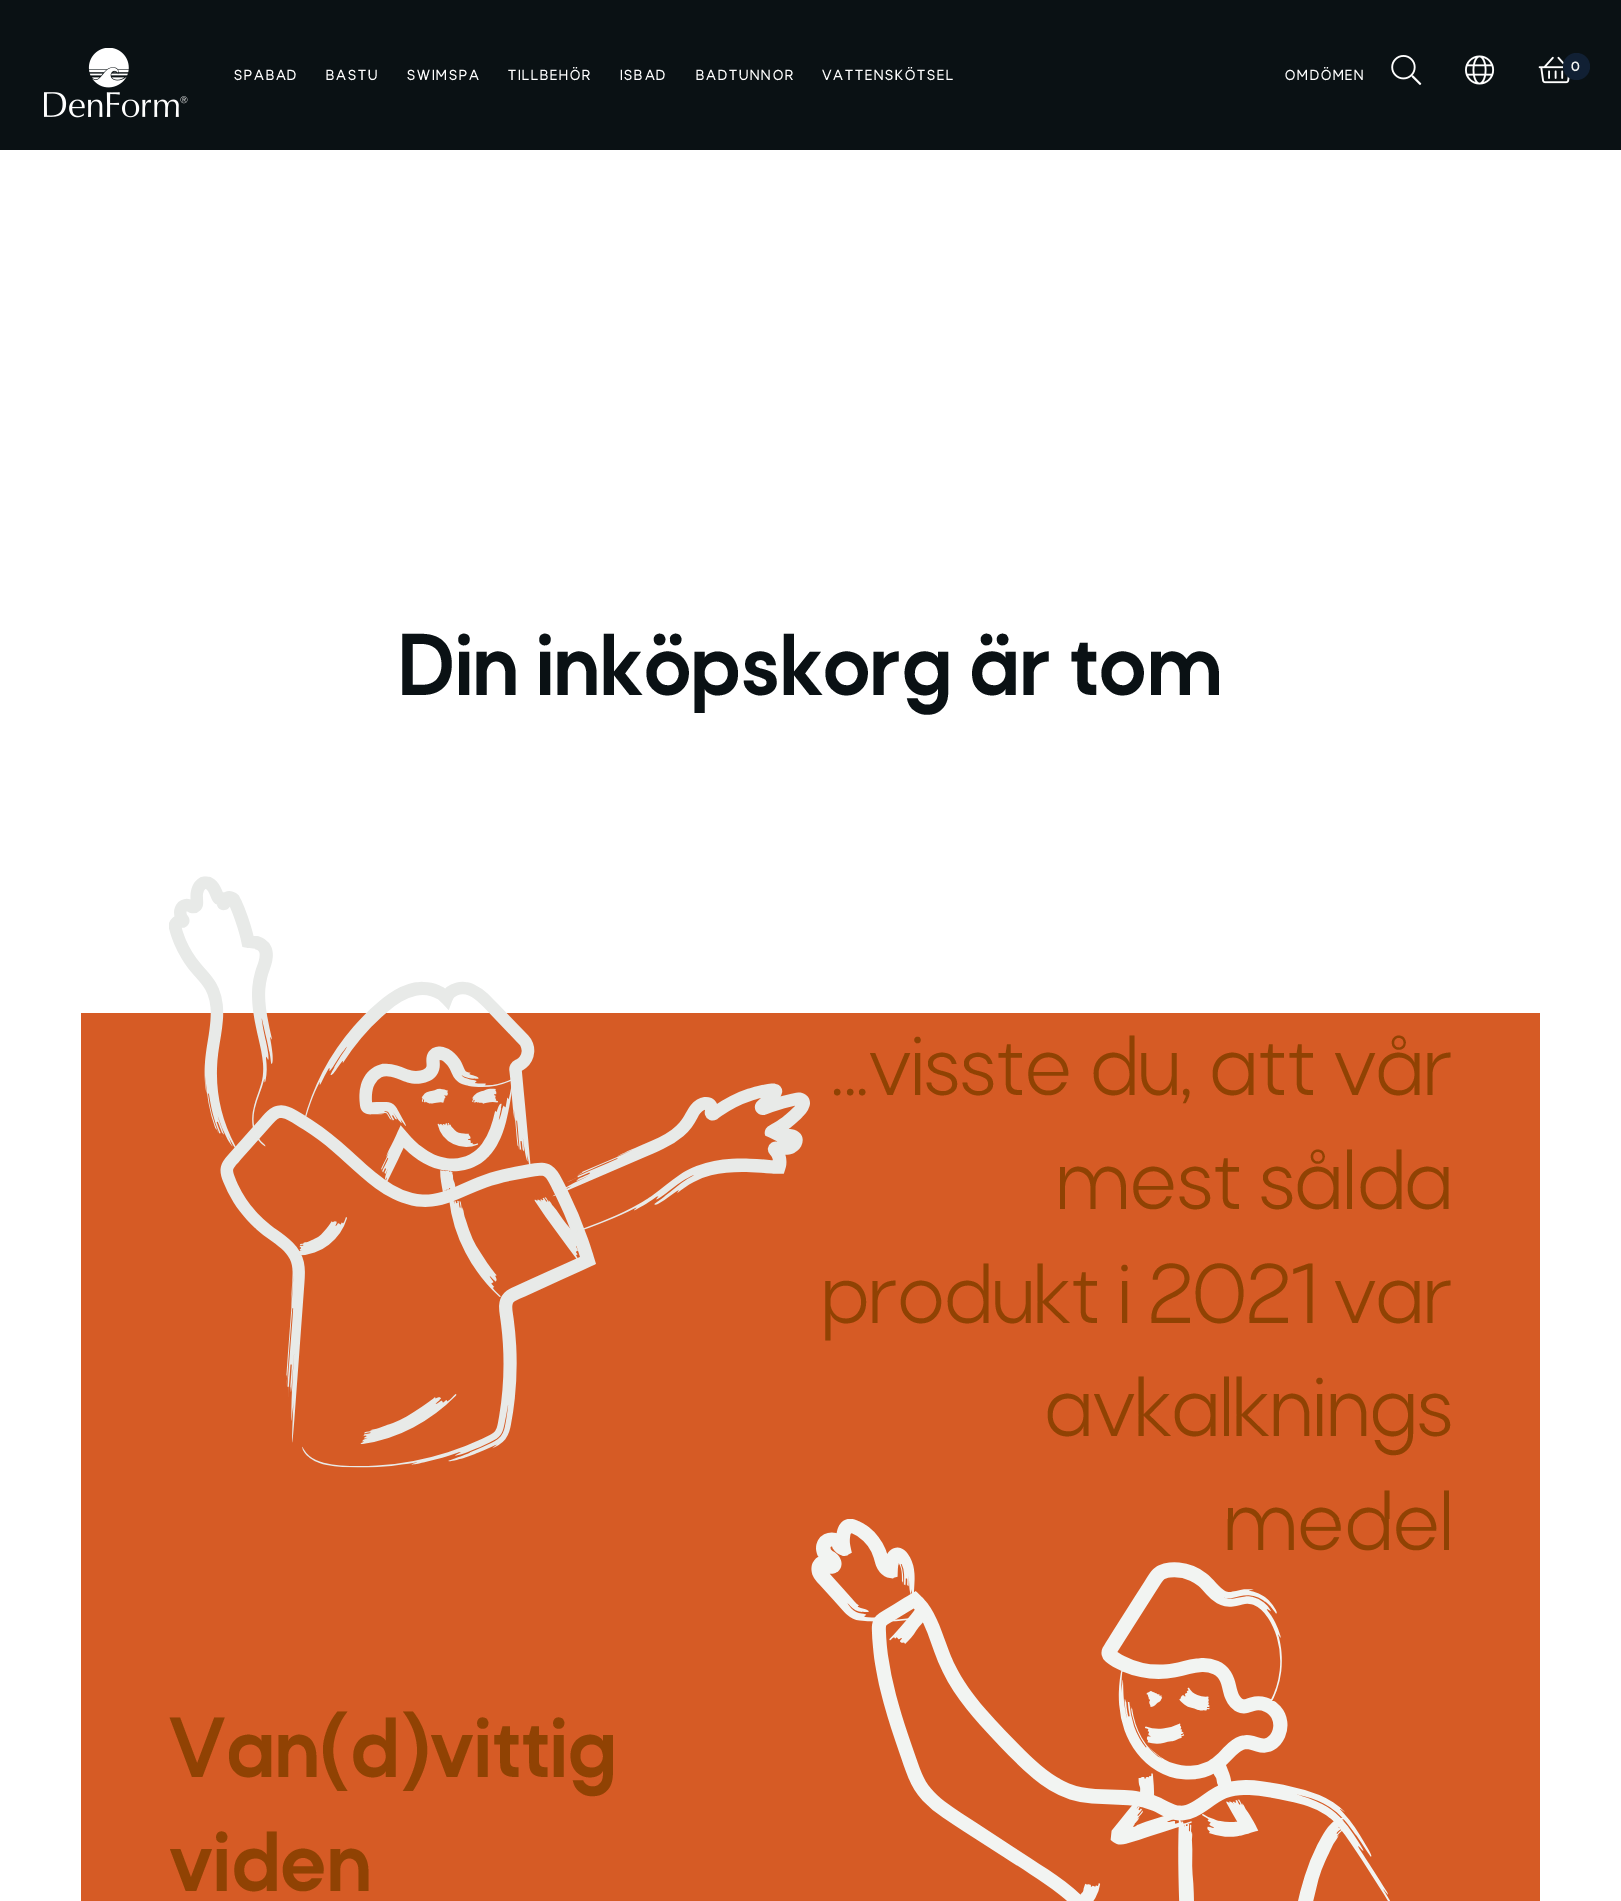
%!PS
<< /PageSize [1621 1901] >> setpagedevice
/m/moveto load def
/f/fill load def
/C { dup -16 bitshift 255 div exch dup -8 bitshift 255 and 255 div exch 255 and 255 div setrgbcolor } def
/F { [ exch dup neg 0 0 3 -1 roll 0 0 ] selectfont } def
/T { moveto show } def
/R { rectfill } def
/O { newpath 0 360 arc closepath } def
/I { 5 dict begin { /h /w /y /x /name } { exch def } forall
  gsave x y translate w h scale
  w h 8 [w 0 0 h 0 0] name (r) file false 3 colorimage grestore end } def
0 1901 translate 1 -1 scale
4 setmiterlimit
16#FFFFFF C
0 0 1621 1901 R
16#0A1114 C
0 0 1621 150 R
(1.rgb) 44 48 144 70 I
/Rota-SemiBold 15 F
16#FFFFFF C
234 80 m 1.9 0 (SPABAD) ashow
326 80 m 1.9 0 (BASTU) ashow
407 80 m 1.9 0 (SWIMSPA) ashow
508 80 m 1.9 0 (TILLBEHÖR) ashow
620 80 m 1.9 0 (ISBAD) ashow
696 80 m 1.9 0 (BADTUNNOR) ashow
822 80 m 1.9 0 (VATTENSKÖTSEL) ashow
1285 80 m 1.9 0 (OMDÖMEN) ashow
(2.rgb) 1391 55 31 30 I
(3.rgb) 1465 55 30 30 I
(4.rgb) 1538 56 32 28 I
16#112034 C
1576.5 66.5 13.5 O f
/Rota-ExtraBold 14 F
16#F2F4F2 C
1571 71 m 1.9 0 (0) ashow
/Rota-ExtraBold 90 F
16#0A1114 C
(Din inköpskorg är tom) 399 695 T
16#D65B25 C
81 1013 1459 888 R
(5.rgb) 169 876 641 592 I
/Rota-Regular 87.5 F
16#904203 C
(...visste du, att vår) 831 1095 T
(mest sålda) 1056 1209 T
(produkt i 2021 var) 822 1323 T
(avkalknings) 1045 1436 T
(medel) 1224 1550 T
/Rota-ExtraBold 87.5 F
(Van\(d\)vittig) 169 1777 T
(viden) 169 1891 T
(6.rgb) 811 1519 579 382 I
showpage
